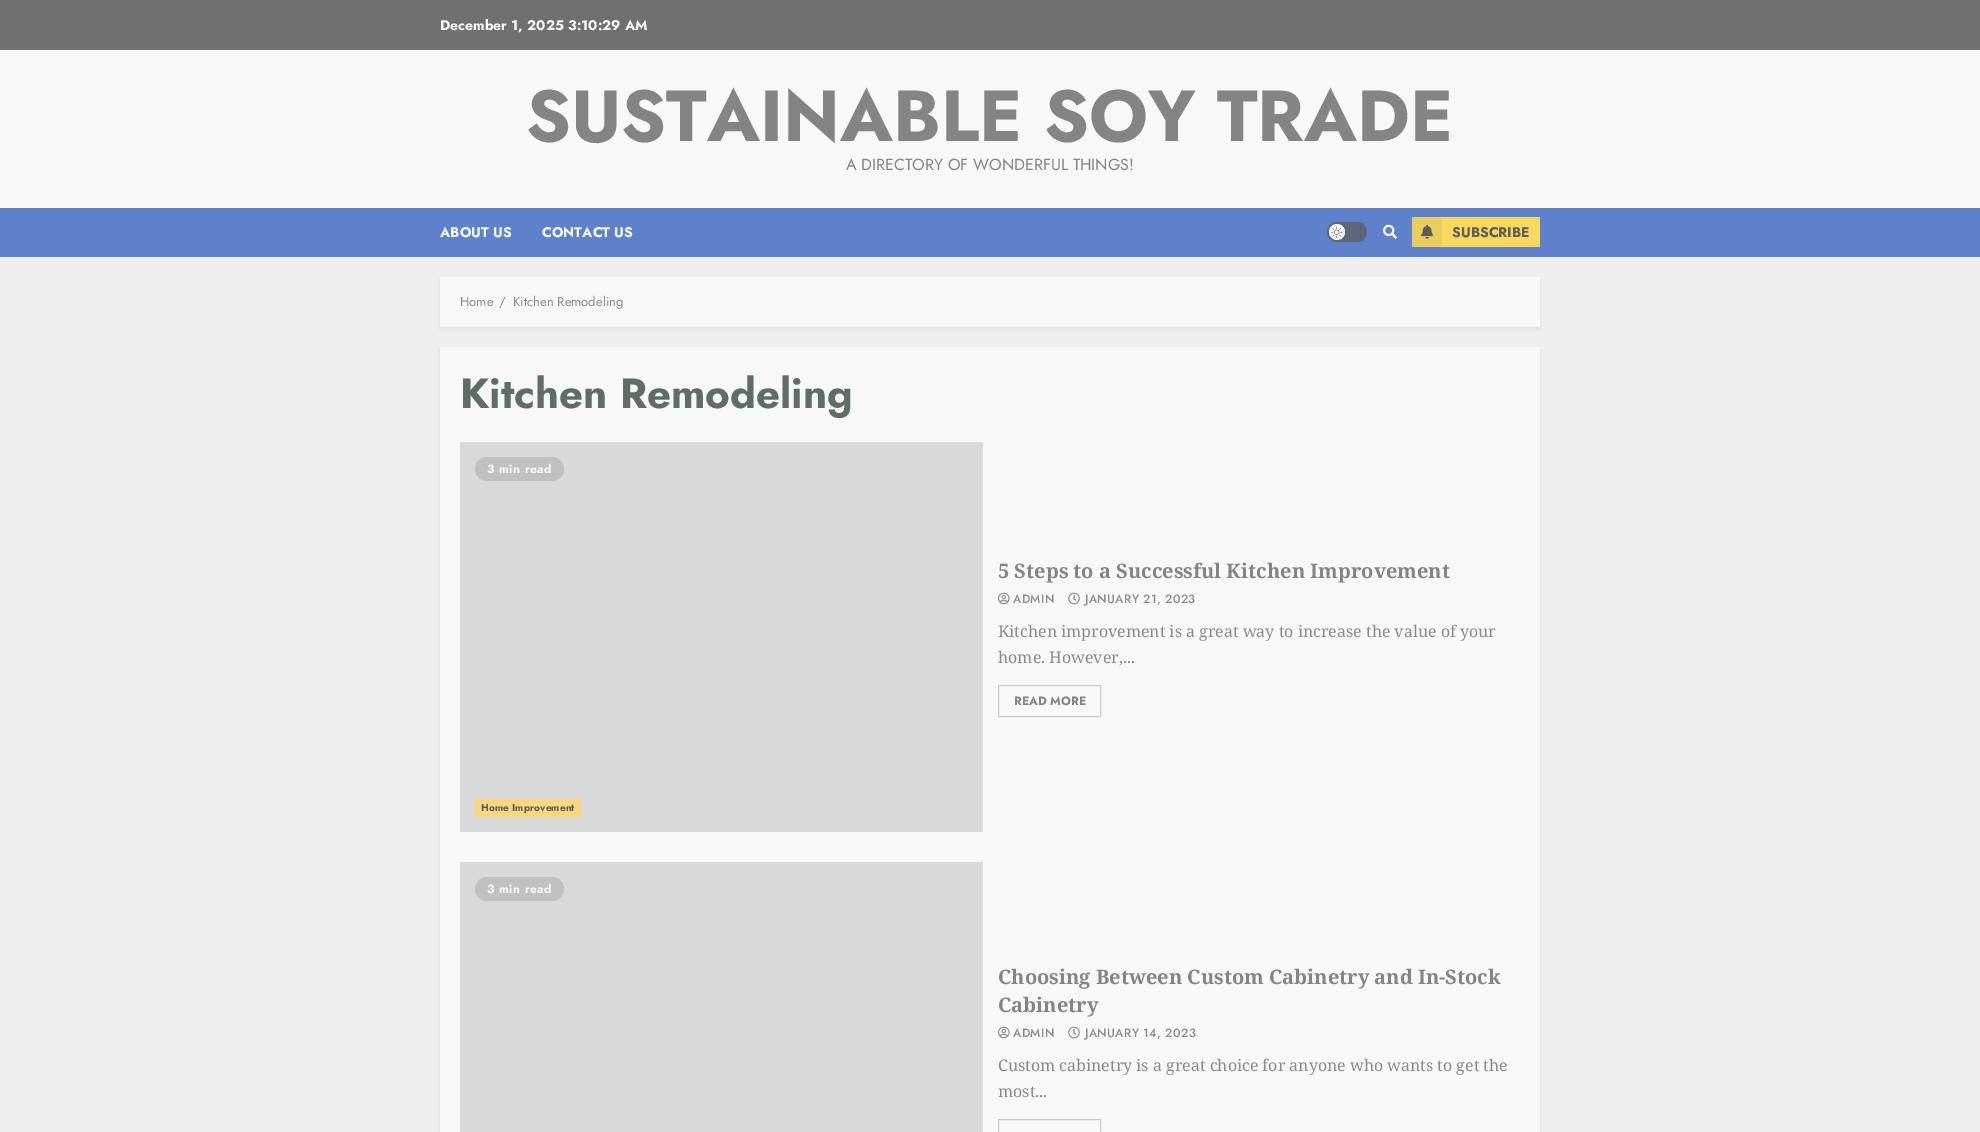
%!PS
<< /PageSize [1980 1132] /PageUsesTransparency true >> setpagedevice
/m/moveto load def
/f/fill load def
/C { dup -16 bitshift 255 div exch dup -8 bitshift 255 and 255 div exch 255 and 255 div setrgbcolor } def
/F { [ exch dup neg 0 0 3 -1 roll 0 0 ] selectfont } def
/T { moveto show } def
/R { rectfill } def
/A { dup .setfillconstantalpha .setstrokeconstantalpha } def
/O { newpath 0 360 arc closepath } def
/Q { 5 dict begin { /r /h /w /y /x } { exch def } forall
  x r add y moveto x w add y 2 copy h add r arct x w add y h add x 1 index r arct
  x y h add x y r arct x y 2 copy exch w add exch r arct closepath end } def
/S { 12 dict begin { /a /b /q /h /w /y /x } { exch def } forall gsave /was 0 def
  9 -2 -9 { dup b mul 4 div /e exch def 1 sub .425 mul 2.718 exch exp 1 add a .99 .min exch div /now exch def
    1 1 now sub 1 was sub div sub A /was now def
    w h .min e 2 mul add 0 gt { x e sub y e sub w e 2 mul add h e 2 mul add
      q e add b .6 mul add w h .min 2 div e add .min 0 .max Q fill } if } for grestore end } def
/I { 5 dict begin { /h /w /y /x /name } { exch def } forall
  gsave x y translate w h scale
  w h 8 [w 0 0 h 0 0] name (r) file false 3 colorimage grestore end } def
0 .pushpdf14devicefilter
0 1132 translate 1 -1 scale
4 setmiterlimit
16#EEEEEE C
0 0 1980 1132 R
16#707070 C
0 0 1980 50 R
/Jost-Bold 14 F
16#F8F8F8 C
(December 1, 2025 3:10:29 AM) 440 30 T
0 50 1980 158 R
/Jost-Bold 72 F
16#848484 C
(SUSTAINABLE SOY TRADE) 526 141 T
/Jost-Regular 16 F
(A DIRECTORY OF WONDERFUL THINGS!) 846 170 T
16#5D81CA C
0 208 1980 49 R
/Jost-Bold 14 F
16#F8F8F8 C
(ABOUT US) 440 237 T
(CONTACT US) 542 237 T
16#5D6678 C
1327 222 40 20 10 Q f
16#F8F8F8 C
1337 232 8 O f
(1.rgb) 1331 226 12 12 I
(2.rgb) 1383 224 14 15 I
16#F8D95D C
1442 217 98 30 R
16#E9CD5D C
1412 217 30 30 R
(3.rgb) 1421 224 13 15 I
16#5D5D5D C
(SUBSCRIBE) 1452 237 T
440 279 1100 50 0 1 .08 S
16#F8F8F8 C
440 277 1100 50 R
/Jost-Regular 13 F
16#8A8A8A C
(Home) 460 306 T
(/) 499 306 T
(Kitchen Remodeling) 513 306 T
16#5D5D5D C
440 349 1100 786 0 1 .08 S
16#F8F8F8 C
440 347 1100 785 R
/Jost-Bold 42 F
16#5F6D67 C
(Kitchen Remodeling) 460 408 T
16#D9D9D9 C
460 442 523 390 R
16#C0C0C0 C
475 457 89 24 12 Q f
/Jost-Bold 12 F
16#F8F8F8 C
487 473 m .5 0 (3 min read) ashow
16#F8D77D C
475 799 106 18 R
/Jost-Bold 10 F
16#5D5D5D C
481 811 m .1 0 (Home Improvement) ashow
/NotoSerif-Bold 20 F
16#848484 C
(5 Steps to a Successful Kitchen Improvement) 998 578 T
(4.rgb) 998 592 12 13 I
/Jost-Medium 12 F
16#8A8A8A C
1013 603 m .4 0 (ADMIN) ashow
(5.rgb) 1068 592 12 13 I
1085 603 m .4 0 (JANUARY 21, 2023) ashow
/NotoSerif-Regular 16 F
(Kitchen improvement is a great way to increase the value of your) 998 637 T
(home. However,...) 998 663 T
16#CACACA C
998.5 685.5 102 31 rectstroke
/Jost-Bold 12 F
16#848484 C
(READ MORE) 1014 705 T
16#D9D9D9 C
460 862 523 270 R
16#C0C0C0 C
475 877 89 24 12 Q f
16#F8F8F8 C
487 893 m .5 0 (3 min read) ashow
/NotoSerif-Bold 20 F
16#848484 C
(Choosing Between Custom Cabinetry and In-Stock) 998 984 T
(Cabinetry) 998 1012 T
(4.rgb) 998 1026 12 13 I
/Jost-Medium 12 F
16#8A8A8A C
1013 1037 m .4 0 (ADMIN) ashow
(5.rgb) 1068 1026 12 13 I
1085 1037 m .4 0 (JANUARY 14, 2023) ashow
/NotoSerif-Regular 16 F
(Custom cabinetry is a great choice for anyone who wants to get the) 998 1071 T
(most...) 998 1097 T
16#CACACA C
998.5 1119.5 102 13 rectstroke
.poppdf14devicefilter showpage
